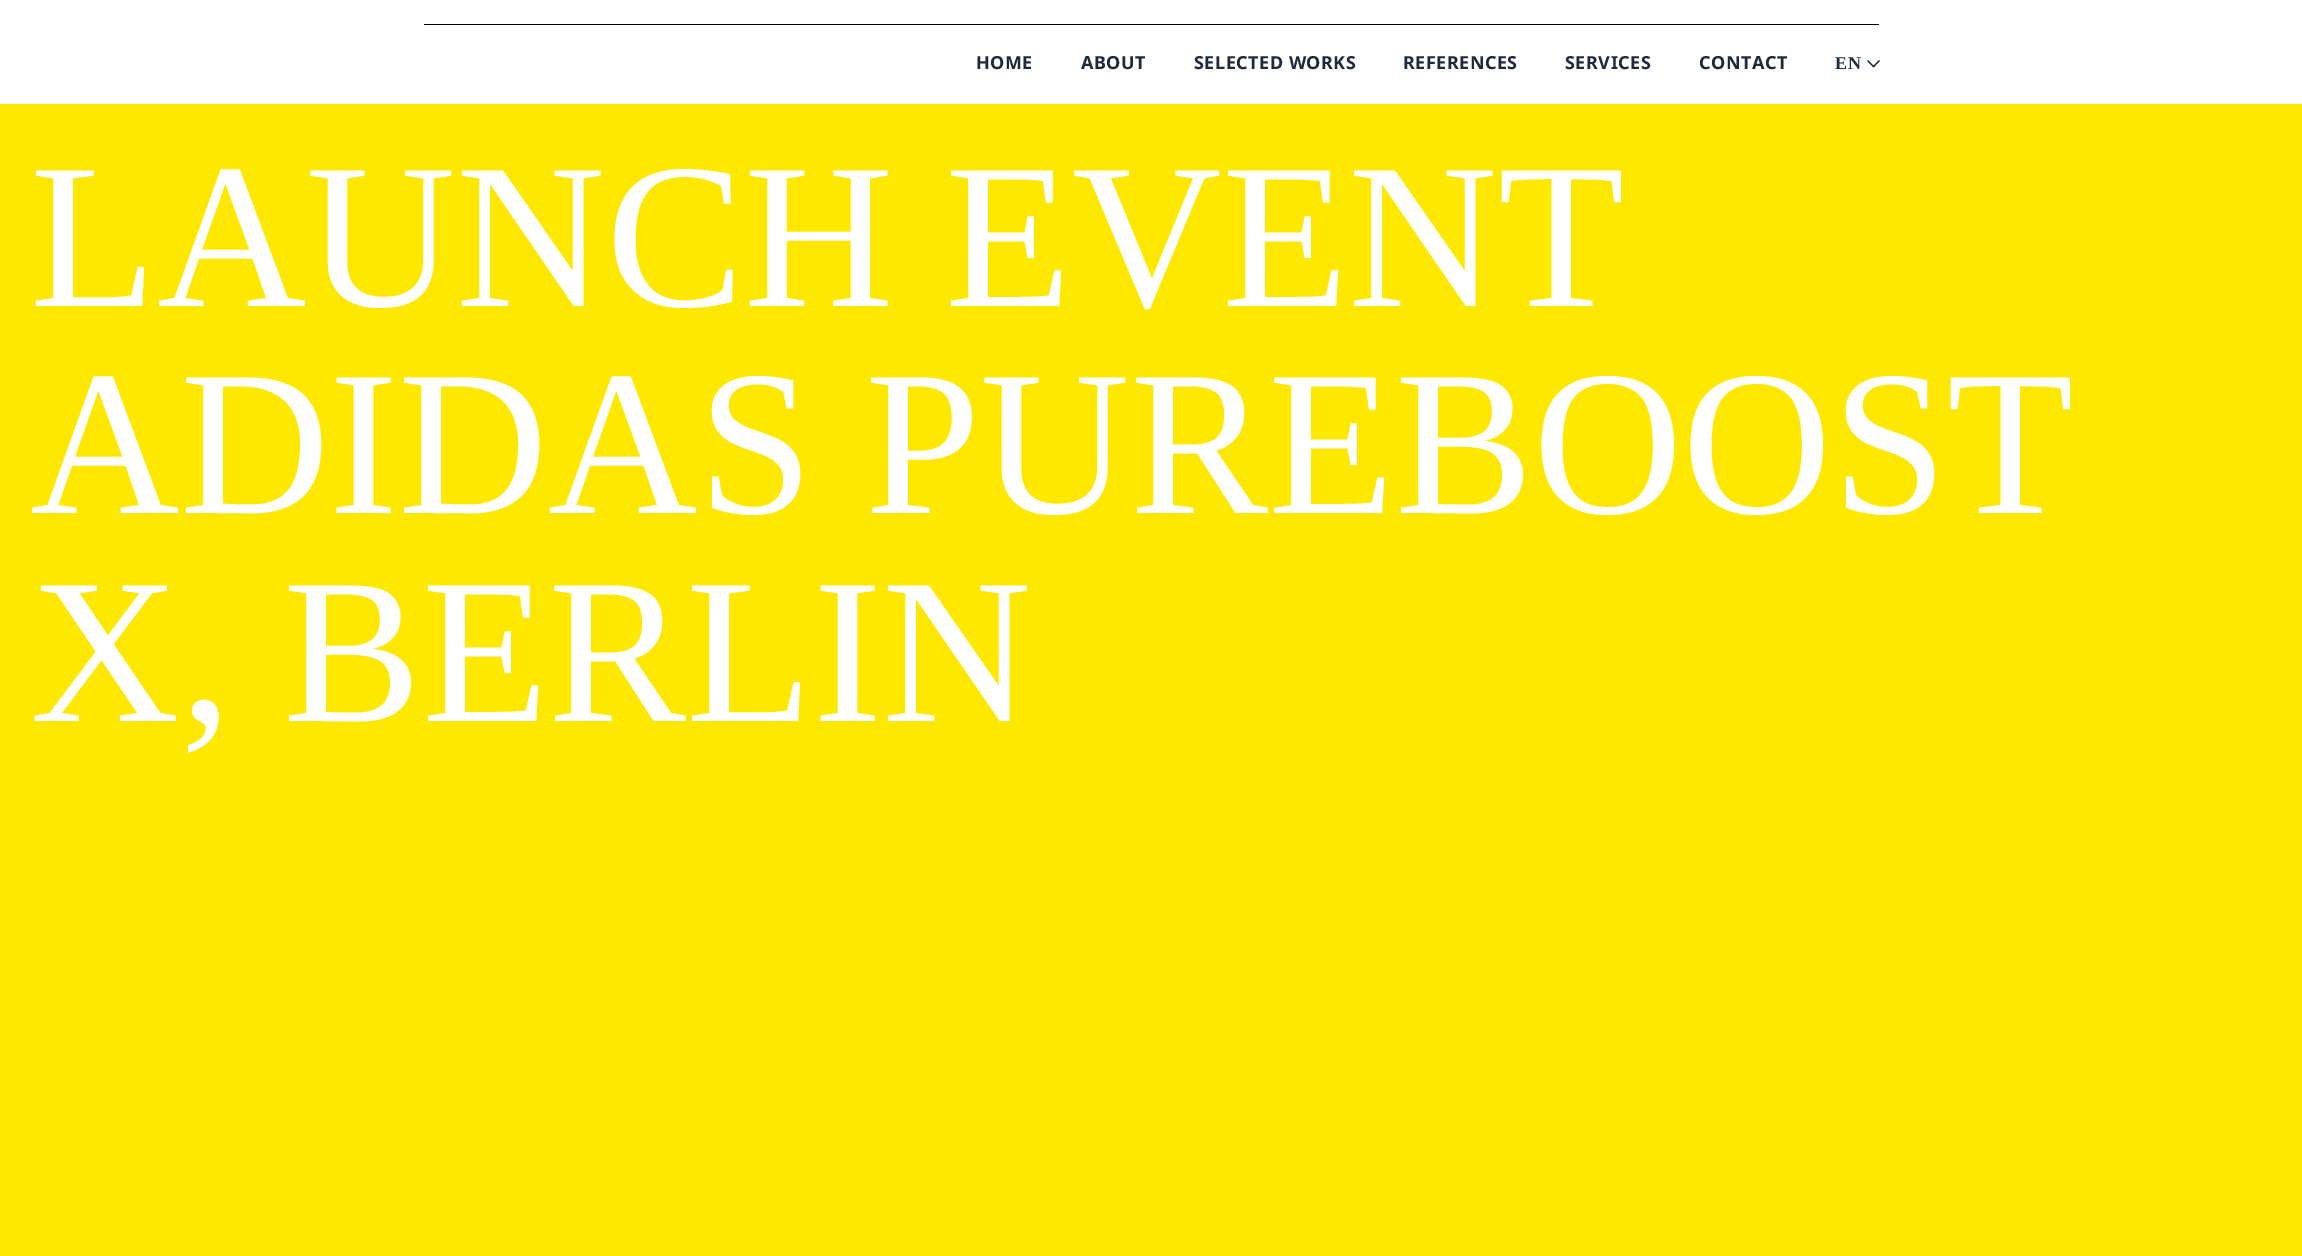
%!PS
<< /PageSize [2302 1256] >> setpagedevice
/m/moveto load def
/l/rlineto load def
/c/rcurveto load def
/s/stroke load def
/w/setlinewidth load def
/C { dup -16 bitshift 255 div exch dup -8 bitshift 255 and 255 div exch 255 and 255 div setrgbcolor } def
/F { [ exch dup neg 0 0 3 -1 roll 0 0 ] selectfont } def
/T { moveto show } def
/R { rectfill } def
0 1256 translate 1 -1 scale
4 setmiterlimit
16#FFFFFF C
0 0 2302 1256 R
16#000000 C
424 24 1455 1 R
/NotoSans-Bold 18 F
16#1E293B C
976 69 m .5 0 (HOME) ashow
1081 69 m .5 0 (ABOUT) ashow
1194 69 m .5 0 (SELECTED WORKS) ashow
1403 69 m .5 0 (REFERENCES) ashow
1565 69 m .5 0 (SERVICES) ashow
1699 69 m .5 0 (CONTACT) ashow
/LiberationSerif-Bold 18 F
1835 69 m .5 0 (EN) ashow
1.4 w
1 setlinecap
1 setlinejoin
1879 61 m -4.5 4.5 l -1 1.5 -1 1.5 -2 0 c -4.5 -4.5 l s
16#FFE800 C
0 104 2302 1152 R
/LiberationSerif-Regular 207.25 F
16#FFFFFF C
(LAUNCH EVENT) 30 306 T
(ADIDAS PUREBOOST) 30 513 T
(X, BERLIN) 30 721 T
showpage
